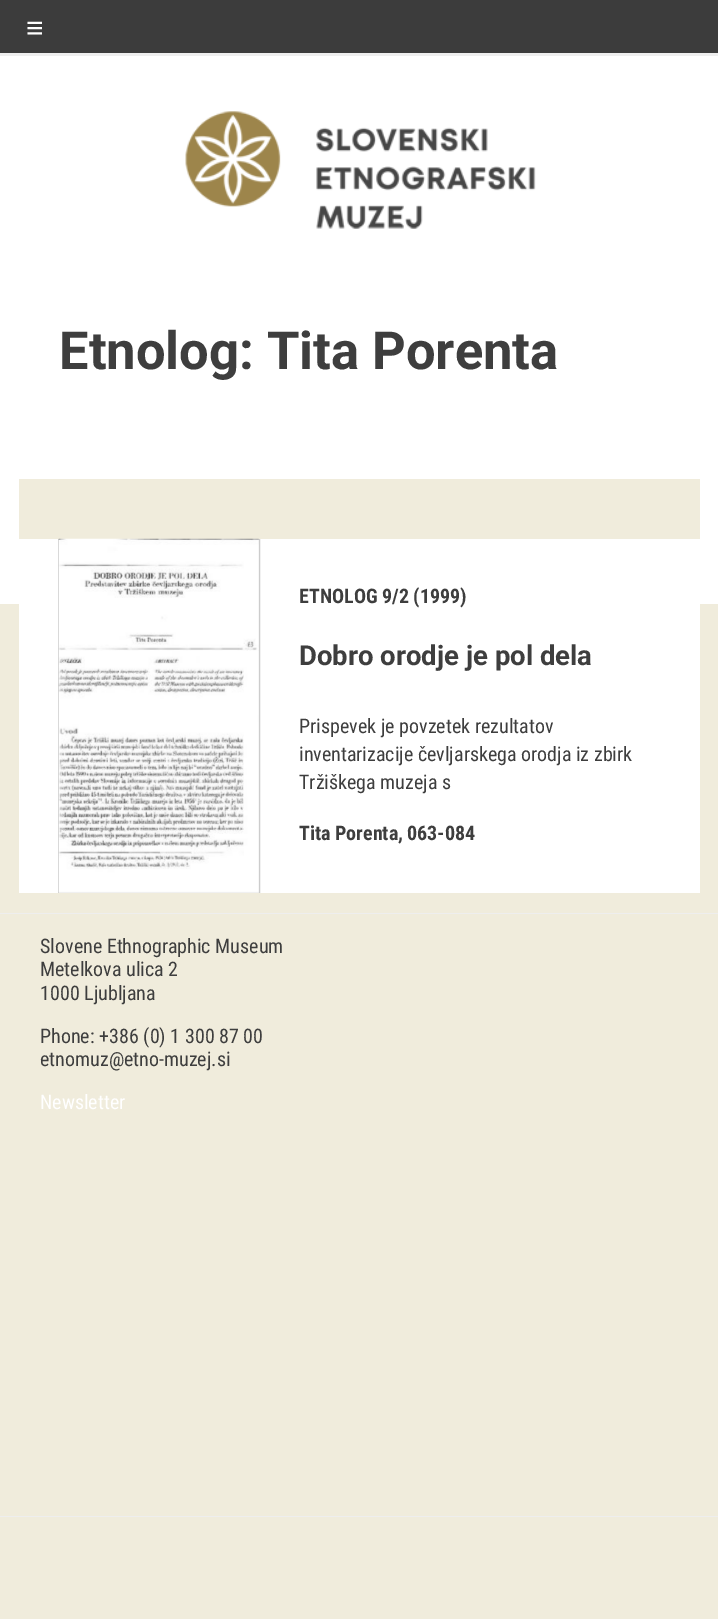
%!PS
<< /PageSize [718 1619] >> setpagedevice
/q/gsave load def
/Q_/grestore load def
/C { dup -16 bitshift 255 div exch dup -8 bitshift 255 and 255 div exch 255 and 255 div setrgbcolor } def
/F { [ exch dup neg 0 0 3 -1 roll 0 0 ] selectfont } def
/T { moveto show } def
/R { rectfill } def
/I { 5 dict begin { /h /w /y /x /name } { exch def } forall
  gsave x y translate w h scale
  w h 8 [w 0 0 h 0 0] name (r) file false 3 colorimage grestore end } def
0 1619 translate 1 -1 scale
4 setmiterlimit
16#FFFFFF C
0 0 718 1619 R
16#3C3C3C C
0 0 718 53 R
16#EEEEEE C
0 53 718 3 R
/LiberationSans-Bold 30 F
16#FFFFFF C
(≡) 26 38 T
(1.rgb) 185 111 351 118 I
16#F0ECDC C
0 604 718 309 R
/Roboto-Bold 52.5 F
16#3E3E3E C
(Etnolog: Tita Porenta) 59 369 T
16#F0ECDC C
19 479 681 125 R
16#FFFFFF C
19 539 681 354 R
q
19 539 681 354 rectclip
16#CCCCCC C
58.5 538.5 201 355 rectstroke
Q_
16#DDDDDD C
59 539 200 354 R
(2.rgb) 58 538 201 355 I
/RobotoCondensed-Bold 20 F
16#3E3E3E C
(ETNOLOG 9/2 \(1999\)) 299 603 T
/Roboto-Bold 27.5 F
(Dobro orodje je pol dela) 299 665 T
/RobotoCondensed-Regular 20 F
(Prispevek je povzetek rezultatov) 299 733 T
(inventarizacije čevljarskega orodja iz zbirk) 299 761 T
(Tržiškega muzeja s) 299 789 T
/RobotoCondensed-Bold 20 F
(Tita Porenta) 299 840 T
/Roboto-Bold 20 F
(,) 398 840 T
/RobotoCondensed-Bold 20 F
(063-084) 407 840 T
16#F0ECDC C
0 914 718 602 R
16#EEEEEE C
0 913 718 1 R
/RobotoCondensed-Regular 20 F
16#3E3E3E C
(Slovene Ethnographic Museum) 40 953 T
(Metelkova ulica 2) 40 976 T
(1000 Ljubljana) 40 1000 T
(Phone: +386 \(0\) 1 300 87 00) 40 1043 T
(etnomuz@etno-muzej.si) 40 1066 T
16#FFFFFF C
(Newsletter) 40 1109 T
16#F0ECDC C
0 1517 718 102 R
16#EEEEEE C
0 1516 718 1 R
showpage
